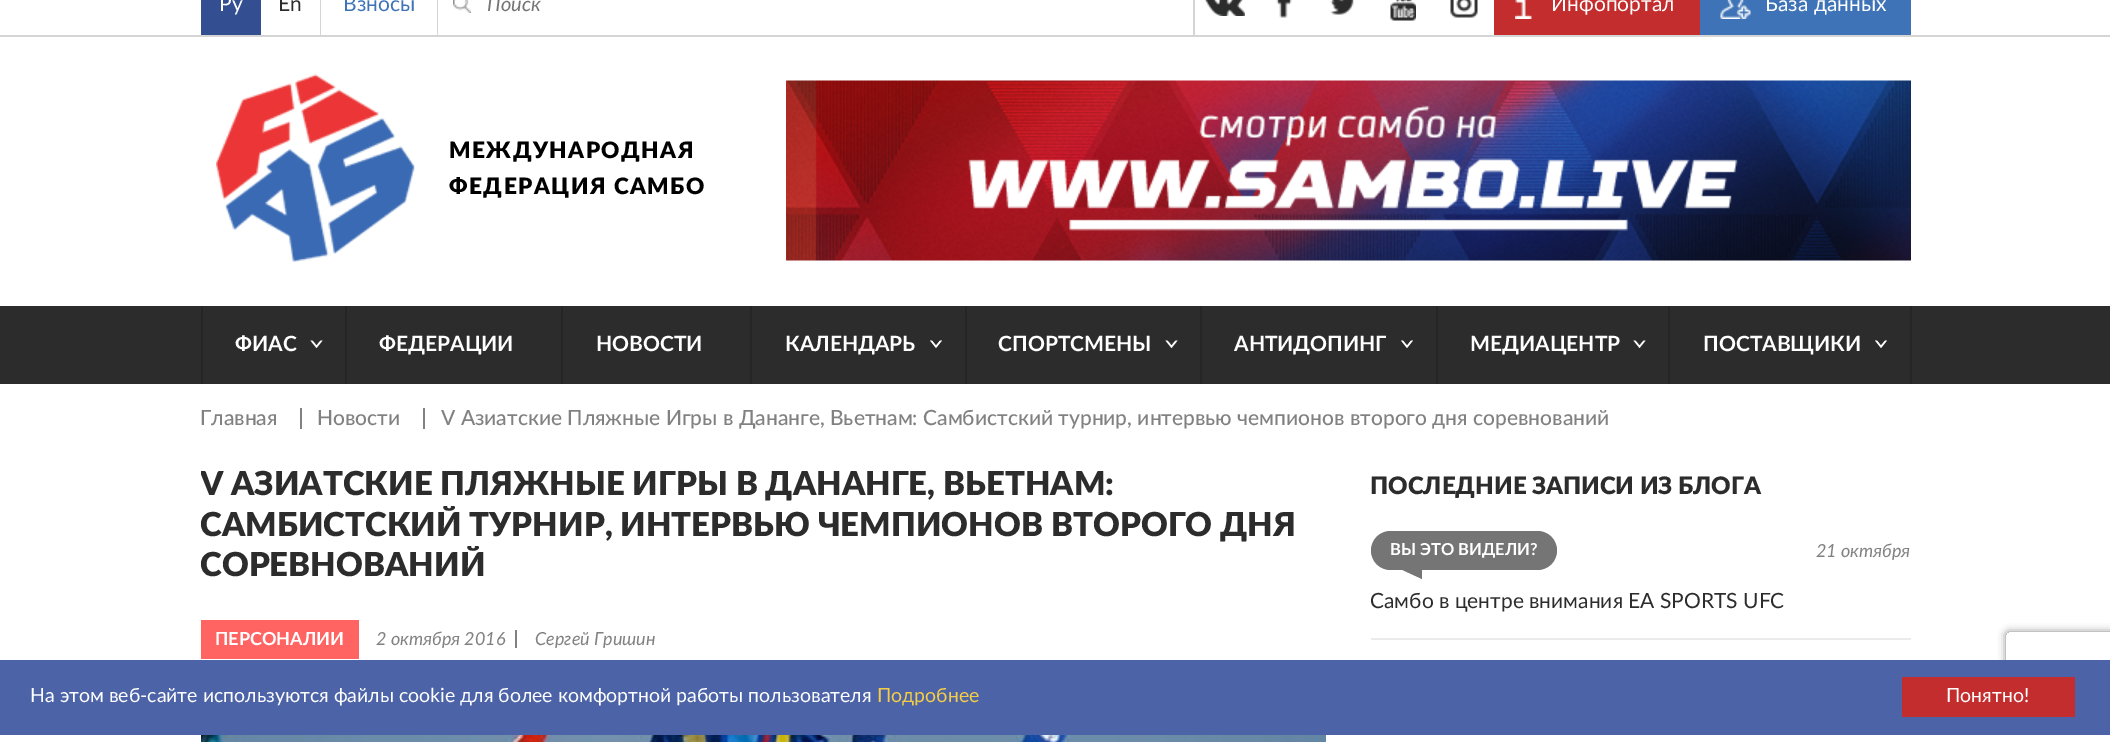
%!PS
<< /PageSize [2110 742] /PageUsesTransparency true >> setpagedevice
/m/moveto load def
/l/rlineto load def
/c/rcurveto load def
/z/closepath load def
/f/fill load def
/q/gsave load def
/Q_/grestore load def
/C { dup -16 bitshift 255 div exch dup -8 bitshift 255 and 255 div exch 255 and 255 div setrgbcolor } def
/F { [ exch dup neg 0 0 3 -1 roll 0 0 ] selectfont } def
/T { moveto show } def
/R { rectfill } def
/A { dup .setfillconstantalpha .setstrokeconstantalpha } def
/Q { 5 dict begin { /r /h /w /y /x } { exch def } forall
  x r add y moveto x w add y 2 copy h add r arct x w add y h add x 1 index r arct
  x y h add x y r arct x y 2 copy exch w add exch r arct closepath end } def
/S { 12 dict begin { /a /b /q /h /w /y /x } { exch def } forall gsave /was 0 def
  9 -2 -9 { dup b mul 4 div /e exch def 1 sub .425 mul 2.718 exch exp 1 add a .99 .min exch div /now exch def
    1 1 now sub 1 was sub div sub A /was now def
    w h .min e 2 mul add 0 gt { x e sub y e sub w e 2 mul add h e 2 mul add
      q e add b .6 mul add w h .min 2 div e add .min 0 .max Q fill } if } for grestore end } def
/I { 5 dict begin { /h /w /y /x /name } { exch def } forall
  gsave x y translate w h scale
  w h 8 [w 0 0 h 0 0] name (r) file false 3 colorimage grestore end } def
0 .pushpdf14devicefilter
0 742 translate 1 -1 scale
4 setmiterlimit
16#FFFFFF C
0 0 2110 742 R
16#D5D5D5 C
0 35 2110 2 R
16#334F92 C
201 0 60 35 R
/Lato-Regular 21 F
16#FFFFFF C
(Ру) 219 11 T
16#D5D5D5 C
320 0 1 35 R
16#2C2C2C C
(En) 278 11 T
16#D5D5D5 C
437 0 1 35 R
16#3E73B7 C
(Взносы) 343 11 T
(1.rgb) 453 0 18 13 I
/Lato-Italic 20 F
16#757575 C
(Поиск) 487 11 T
16#D5D5D5 C
1193 0 2 35 R
(2.rgb) 1204 0 41 16 I
(3.rgb) 1276 0 16 18 I
(4.rgb) 1330 0 24 15 I
(5.rgb) 1390 0 26 21 I
(6.rgb) 1450 0 28 18 I
16#C32D2D C
1494 0 206 35 R
(7.rgb) 1515 0 17 19 I
/Lato-Regular 21 F
16#FFFFFF C
(Инфопортал) 1551 11 T
16#3E73B7 C
1700 0 211 35 R
(8.rgb) 1720 0 31 19 I
16#FFFFFF C
(База данных) 1765 11 T
(9.rgb) 216 74 199 188 I
/Lato-Black 22.5 F
16#000000 C
449 158 m 1.5 0 (МЕЖДУНАРОДНАЯ) ashow
449 194 m 1.5 0 (ФЕДЕРАЦИЯ САМБО) ashow
(10.rgb) 786 80 1125 181 I
16#2C2C2C C
0 306 2110 78 R
16#252525 C
345 306 2 78 R
201 306 2 78 R
/Lato-Bold 21 F
16#FFFFFF C
(ФИАС) 235 351 T
310.5 340.5 m 12 0 l -6 7.5 l z f
16#2C2C2C C
310.5 337.5 m 12 0 l -6 7.5 l z f
16#252525 C
561 306 2 78 R
16#FFFFFF C
(ФЕДЕРАЦИИ) 379 351 T
16#252525 C
750 306 2 78 R
16#FFFFFF C
(НОВОСТИ) 596 351 T
16#252525 C
965 306 2 78 R
16#FFFFFF C
(КАЛЕНДАРЬ) 785 351 T
930 340.5 m 12 0 l -6 7.5 l z f
16#2C2C2C C
930 337.5 m 12 0 l -6 7.5 l z f
16#252525 C
1200 306 2 78 R
16#FFFFFF C
(СПОРТСМЕНЫ) 998 351 T
1165.5 340.5 m 12 0 l -6 7.5 l z f
16#2C2C2C C
1165.5 337.5 m 12 0 l -6 7.5 l z f
16#252525 C
1436 306 2 78 R
16#FFFFFF C
(АНТИДОПИНГ) 1234 351 T
1401 340.5 m 12 0 l -6 7.5 l z f
16#2C2C2C C
1401 337.5 m 12 0 l -6 7.5 l z f
16#252525 C
1668 306 2 78 R
16#FFFFFF C
(МЕДИАЦЕНТР) 1470 351 T
1633.5 340.5 m 12 0 l -6 7.5 l z f
16#2C2C2C C
1633.5 337.5 m 12 0 l -6 7.5 l z f
16#252525 C
1910 306 2 78 R
16#FFFFFF C
(ПОСТАВЩИКИ) 1703 351 T
1875 340.5 m 12 0 l -6 7.5 l z f
16#2C2C2C C
1875 337.5 m 12 0 l -6 7.5 l z f
/Lato-Medium 21 F
16#818181 C
(Главная) 200 425 T
300 408 2 21 R
(Новости) 317 425 T
423 408 2 21 R
(V Азиатские Пляжные Игры в Дананге, Вьетнам: Самбистский турнир, интервью чемпионов второго дня соревнований) 441 425 T
q
201 453 1710 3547 rectclip
/Lato-Black 33 F
16#2C2C2C C
(V АЗИАТСКИЕ ПЛЯЖНЫЕ ИГРЫ В ДАНАНГЕ, ВЬЕТНАМ:) 200 495 T
Q_
/Lato-Black 33 F
16#2C2C2C C
(САМБИСТСКИЙ ТУРНИР, ИНТЕРВЬЮ ЧЕМПИОНОВ ВТОРОГО ДНЯ) 200 536 T
(СОРЕВНОВАНИЙ) 200 576 T
16#FF6463 C
201 620 158 39 R
/Lato-Bold 18 F
16#FFFFFF C
(ПЕРСОНАЛИИ) 215 645 T
/Lato-Italic 18 F
16#818181 C
(2 октября 2016) 376 645 T
515 630 2 18 R
(Сергей Гришин) 535 645 T
(11.rgb) 201 735 1125 7 I
/Lato-Black 24 F
16#2C2C2C C
(ПОСЛЕДНИЕ ЗАПИСИ ИЗ БЛОГА) 1370 494 T
16#EBEBEB C
1371 638 540 2 R
16#757575 C
1371 531 186 39 19.5 Q f
/Lato-Bold 16.5 F
16#FFFFFF C
(ВЫ ЭТО ВИДЕЛИ?) 1390 555 T
16#757575 C
1422 570 m 0 9 l -19.5 -9 l z f
/Lato-Italic 18 F
16#818181 C
(21 октября) 1816 557 T
/Lato-Regular 21 F
16#2C2C2C C
(Самбо в центре внимания EA SPORTS UFC) 1370 608 T
q
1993 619 m 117 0 l 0 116 l -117 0 l z 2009 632 m 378 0 l 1.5 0 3 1.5 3 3 c 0 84 l 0 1.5 -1.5 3 -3 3 c -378 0 l -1.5 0 -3 -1.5 -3 -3 c 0 -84 l 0 -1.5 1.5 -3 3 -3 c z eoclip newpath
16#808080 C
2006 632 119 90 3 4 1 S
Q_
16#4C63A8 C
0 660 2110 75 R
/Lato-Regular 19.5 F
16#FFFFFF C
(На этом веб-сайте используются файлы cookie для более комфортной работы пользователя) 30 702 T
16#F4CD47 C
(Подробнее) 877 702 T
16#C32D2D C
1902 677 173 40 R
16#FFFFFF C
(Понятно!) 1946 702 T
.poppdf14devicefilter showpage
